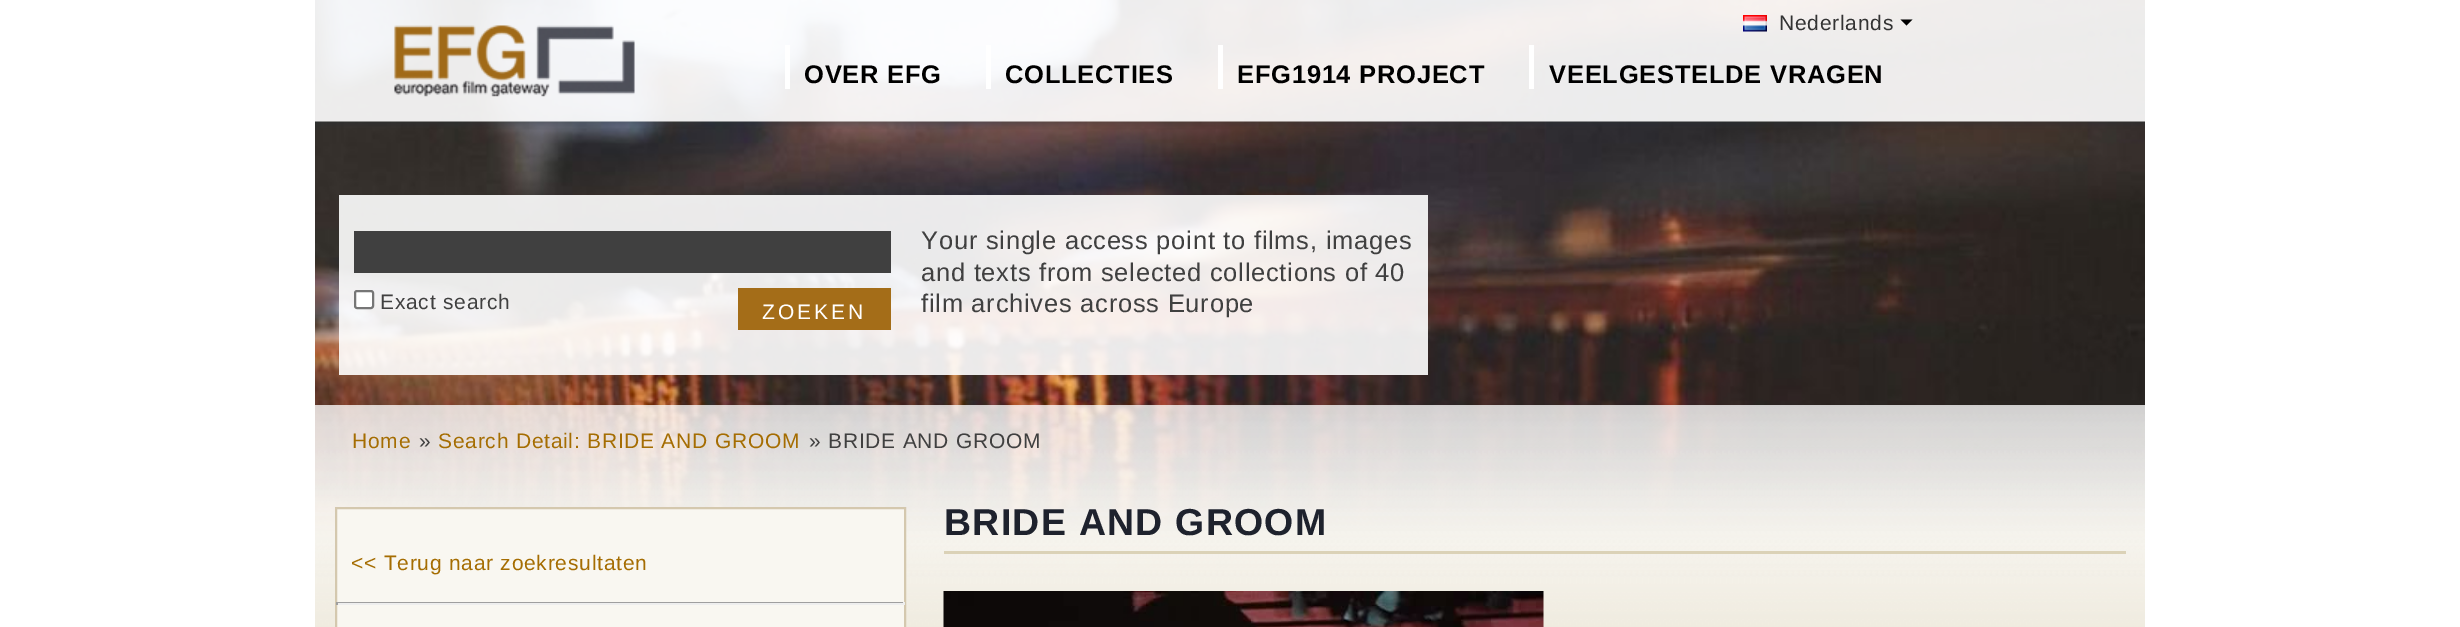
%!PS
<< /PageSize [2460 627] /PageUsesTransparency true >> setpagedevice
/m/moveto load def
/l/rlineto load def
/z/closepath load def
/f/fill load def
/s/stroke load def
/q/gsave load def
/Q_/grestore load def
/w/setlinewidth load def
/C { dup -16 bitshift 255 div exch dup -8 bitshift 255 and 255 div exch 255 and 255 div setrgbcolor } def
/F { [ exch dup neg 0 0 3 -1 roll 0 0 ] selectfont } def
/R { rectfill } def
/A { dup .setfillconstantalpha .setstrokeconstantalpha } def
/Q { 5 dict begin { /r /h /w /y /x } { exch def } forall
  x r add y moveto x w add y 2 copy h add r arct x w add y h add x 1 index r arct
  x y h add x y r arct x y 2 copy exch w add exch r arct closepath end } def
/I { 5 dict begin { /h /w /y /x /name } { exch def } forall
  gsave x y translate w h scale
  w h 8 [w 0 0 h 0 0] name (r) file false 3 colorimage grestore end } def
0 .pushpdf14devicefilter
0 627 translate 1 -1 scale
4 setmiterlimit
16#FFFFFF C
0 0 2460 627 R
(1.rgb) 315 0 1830 576 I
(2.rgb) 315 0 1830 130 I
(3.rgb) 1743 15 24 17 I
/LiberationSans-Regular 21 F
16#333333 C
1779 30 m .75 0 (Nederlands) ashow
16#000000 C
1900.5 19.5 m 12 0 l -6 6 l z f
16#FFFFFF C
785 45 5 44 R
/LiberationSans-Bold 25.5 F
16#000000 C
804 83 m .75 0 (OVER EFG) ashow
16#FFFFFF C
986 45 5 44 R
16#000000 C
1005 83 m .75 0 (COLLECTIES) ashow
16#FFFFFF C
1218 45 5 44 R
16#000000 C
1237 83 m .75 0 (EFG1914 PROJECT) ashow
16#FFFFFF C
1529 45 5 44 R
16#000000 C
1549 83 m .75 0 (VEELGESTELDE VRAGEN) ashow
0.9 A
16#FFFFFF C
339 195 1089 180 R
1 A
16#404040 C
354 231 537 42 R
16#FFFFFF C
355 291 18 17 2 Q q f Q_
16#767676 C
2 w
s
/LiberationSans-Regular 21 F
16#404040 C
380 309 m .75 0 (Exact search) ashow
16#A46D18 C
738 288 153 42 R
16#FFFFFF C
762 319 m 3 0 (ZOEKEN) ashow
/LiberationSans-Regular 25.5 F
16#404040 C
921 249 m .75 0 (Your single access point to films, images) ashow
921 281 m .75 0 (and texts from selected collections of 40) ashow
921 312 m .75 0 (film archives across Europe) ashow
(4.rgb) 315 405 1830 222 I
/LiberationSans-Regular 21 F
16#A56D02 C
352 448 m .75 0 (Home) ashow
16#404040 C
419 448 m .75 0 (») ashow
16#A56D02 C
438 448 m .75 0 (Search Detail: BRIDE AND GROOM) ashow
16#404040 C
809 448 m .75 0 (» BRIDE AND GROOM) ashow
16#DBD2B7 C
944 551 1182 3 R
/LiberationSans-Bold 37.5 F
16#1E222D C
944 535 m 1.25 0 (BRIDE AND GROOM) ashow
(5.rgb) 943 591 601 36 I
16#F9F7F1 C
336 508 m 569 0 l 0 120 l -569 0 l z q f Q_
16#D4C8AE C
s
/LiberationSans-Regular 21 F
16#A56D02 C
351 570 m .75 0 (<< Terug naar zoekresultaten) ashow
16#9F9F9F C
336 602 569 1 R
16#EEEEEE C
903 602 2 3 R
336 603 569 2 R
16#9F9F9F C
336 602 2 3 R
.poppdf14devicefilter showpage
